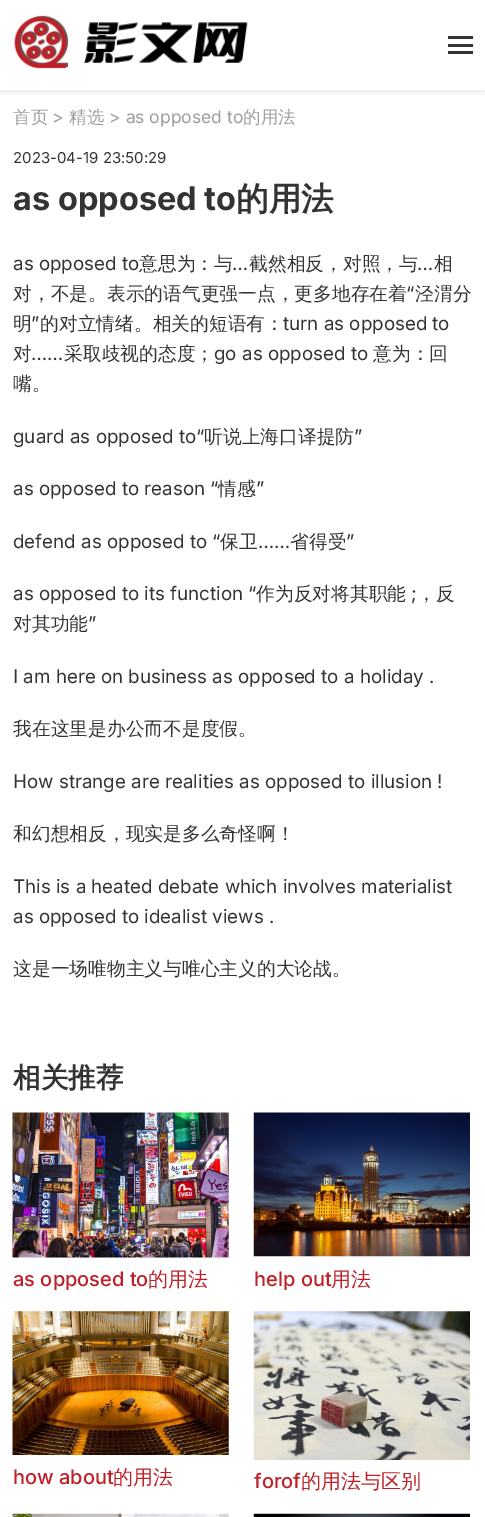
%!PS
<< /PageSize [485 1517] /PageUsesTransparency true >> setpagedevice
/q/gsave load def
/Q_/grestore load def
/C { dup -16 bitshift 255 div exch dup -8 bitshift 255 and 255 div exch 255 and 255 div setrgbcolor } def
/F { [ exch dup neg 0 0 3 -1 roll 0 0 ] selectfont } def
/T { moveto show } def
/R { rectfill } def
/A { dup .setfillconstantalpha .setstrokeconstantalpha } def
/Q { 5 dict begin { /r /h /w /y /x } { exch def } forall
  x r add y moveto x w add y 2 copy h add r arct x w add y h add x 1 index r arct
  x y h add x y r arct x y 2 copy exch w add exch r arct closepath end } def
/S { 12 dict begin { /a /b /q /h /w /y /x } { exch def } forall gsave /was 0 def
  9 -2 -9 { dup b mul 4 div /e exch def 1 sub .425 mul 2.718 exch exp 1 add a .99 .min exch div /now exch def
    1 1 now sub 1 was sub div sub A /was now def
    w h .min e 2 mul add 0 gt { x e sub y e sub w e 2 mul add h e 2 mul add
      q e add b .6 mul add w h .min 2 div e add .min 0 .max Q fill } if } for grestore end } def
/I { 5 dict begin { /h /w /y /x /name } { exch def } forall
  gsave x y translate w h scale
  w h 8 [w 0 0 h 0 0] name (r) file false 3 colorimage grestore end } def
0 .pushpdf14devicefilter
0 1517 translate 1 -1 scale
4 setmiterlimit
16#FFFFFF C
0 0 485 1517 R
q
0 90 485 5 rectclip
16#4C4C4B C
0 3 485 90 0 2.5 .1 S
Q_
(1.rgb) 14 15 234 54 I
16#333333 C
448 44 25 3 R
448 36 25 3 R
448 51 25 3 R
/WenQuanYiZenHei-Medium 17.5 F
16#9E9E9E C
(首页) 13 123 T
/Inter-Regular 17.5 F
(>) 52 123 T
/WenQuanYiZenHei-Medium 17.5 F
(精选) 69 123 T
/Inter-Regular 17.5 F
(> as opposed to) 109 123 T
/WenQuanYiZenHei-Medium 17.5 F
(的用法) 243 123 T
/Inter-Regular 15 F
16#333333 C
(2023-04-19 23:50:29) 13 163 T
/Inter-Bold 32.5 F
(as opposed to) 13 210 T
/WenQuanYiZenHei-Bold 32.5 F
(的用法) 236 210 T
/Inter-Regular 18.75 F
(as opposed to) 13 270 T
/WenQuanYiZenHei-Medium 18.75 F
(意思为：与) 139 270 T
/Inter-Regular 18.75 F
(…) 232 270 T
/WenQuanYiZenHei-Medium 18.75 F
(截然相反，对照，与) 249 270 T
/Inter-Regular 18.75 F
(…) 417 270 T
/WenQuanYiZenHei-Medium 18.75 F
(相) 434 270 T
(对，不是。表示的语气更强一点，更多地存在着) 13 300 T
/Inter-Regular 18.75 F
(“) 406 300 T
/WenQuanYiZenHei-Medium 18.75 F
(泾渭分) 415 300 T
(明) 13 330 T
/Inter-Regular 18.75 F
(”) 31 330 T
/WenQuanYiZenHei-Medium 18.75 F
(的对立情绪。相关的短语有：) 40 330 T
/Inter-Regular 18.75 F
(turn as opposed to) 283 330 T
/WenQuanYiZenHei-Medium 18.75 F
(对) 13 360 T
/Inter-Regular 18.75 F
(……) 31 360 T
/WenQuanYiZenHei-Medium 18.75 F
(采取歧视的态度；) 64 360 T
/Inter-Regular 18.75 F
(go as opposed to) 214 360 T
/WenQuanYiZenHei-Medium 18.75 F
(意为：回) 373 360 T
(嘴。) 13 390 T
/Inter-Regular 18.75 F
(guard as opposed to“) 13 443 T
/WenQuanYiZenHei-Medium 18.75 F
(听说上海口译提防) 204 443 T
/Inter-Regular 18.75 F
(”) 354 443 T
(as opposed to reason “) 13 495 T
/WenQuanYiZenHei-Medium 18.75 F
(情感) 218 495 T
/Inter-Regular 18.75 F
(”) 256 495 T
(defend as opposed to “) 13 548 T
/WenQuanYiZenHei-Medium 18.75 F
(保卫) 220 548 T
(省得受) 290 548 T
/Inter-Regular 18.75 F
(”) 346 548 T
(……) 258 548 T
(as opposed to its function “) 13 600 T
/WenQuanYiZenHei-Medium 18.75 F
(作为反对将其职能) 256 600 T
/Inter-Regular 18.75 F
(;) 411 600 T
/WenQuanYiZenHei-Medium 18.75 F
(，反) 417 600 T
(对其功能) 13 630 T
/Inter-Regular 18.75 F
(”) 88 630 T
(I am here on business as opposed to a holiday .) 13 683 T
/WenQuanYiZenHei-Medium 18.75 F
(我在这里是办公而不是度假。) 13 735 T
/Inter-Regular 18.75 F
(How strange are realities as opposed to illusion !) 13 788 T
/WenQuanYiZenHei-Medium 18.75 F
(和幻想相反，现实是多么奇怪啊！) 13 840 T
/Inter-Regular 18.75 F
(This is a heated debate which involves materialist) 13 893 T
(as opposed to idealist views .) 13 923 T
/WenQuanYiZenHei-Medium 18.75 F
(这是一场唯物主义与唯心主义的大论战。) 13 975 T
/WenQuanYiZenHei-Bold 27.5 F
(相关推荐) 13 1087 T
(2.rgb) 12 1112 217 146 I
/Inter-Medium 20 F
16#BF1F26 C
(as opposed to) 13 1286 T
/WenQuanYiZenHei-Medium 20 F
(的用法) 148 1286 T
(3.rgb) 253 1112 217 145 I
/Inter-Medium 20 F
(help out) 254 1286 T
/WenQuanYiZenHei-Medium 20 F
(用法) 331 1286 T
(4.rgb) 12 1311 217 144 I
/Inter-Medium 20 F
(how about) 13 1484 T
/WenQuanYiZenHei-Medium 20 F
(的用法) 113 1484 T
(5.rgb) 253 1311 217 149 I
/Inter-Medium 20 F
(forof) 254 1488 T
/WenQuanYiZenHei-Medium 20 F
(的用法与区别) 301 1488 T
(6.rgb) 12 1513 217 4 I
(7.rgb) 253 1513 217 4 I
.poppdf14devicefilter showpage
